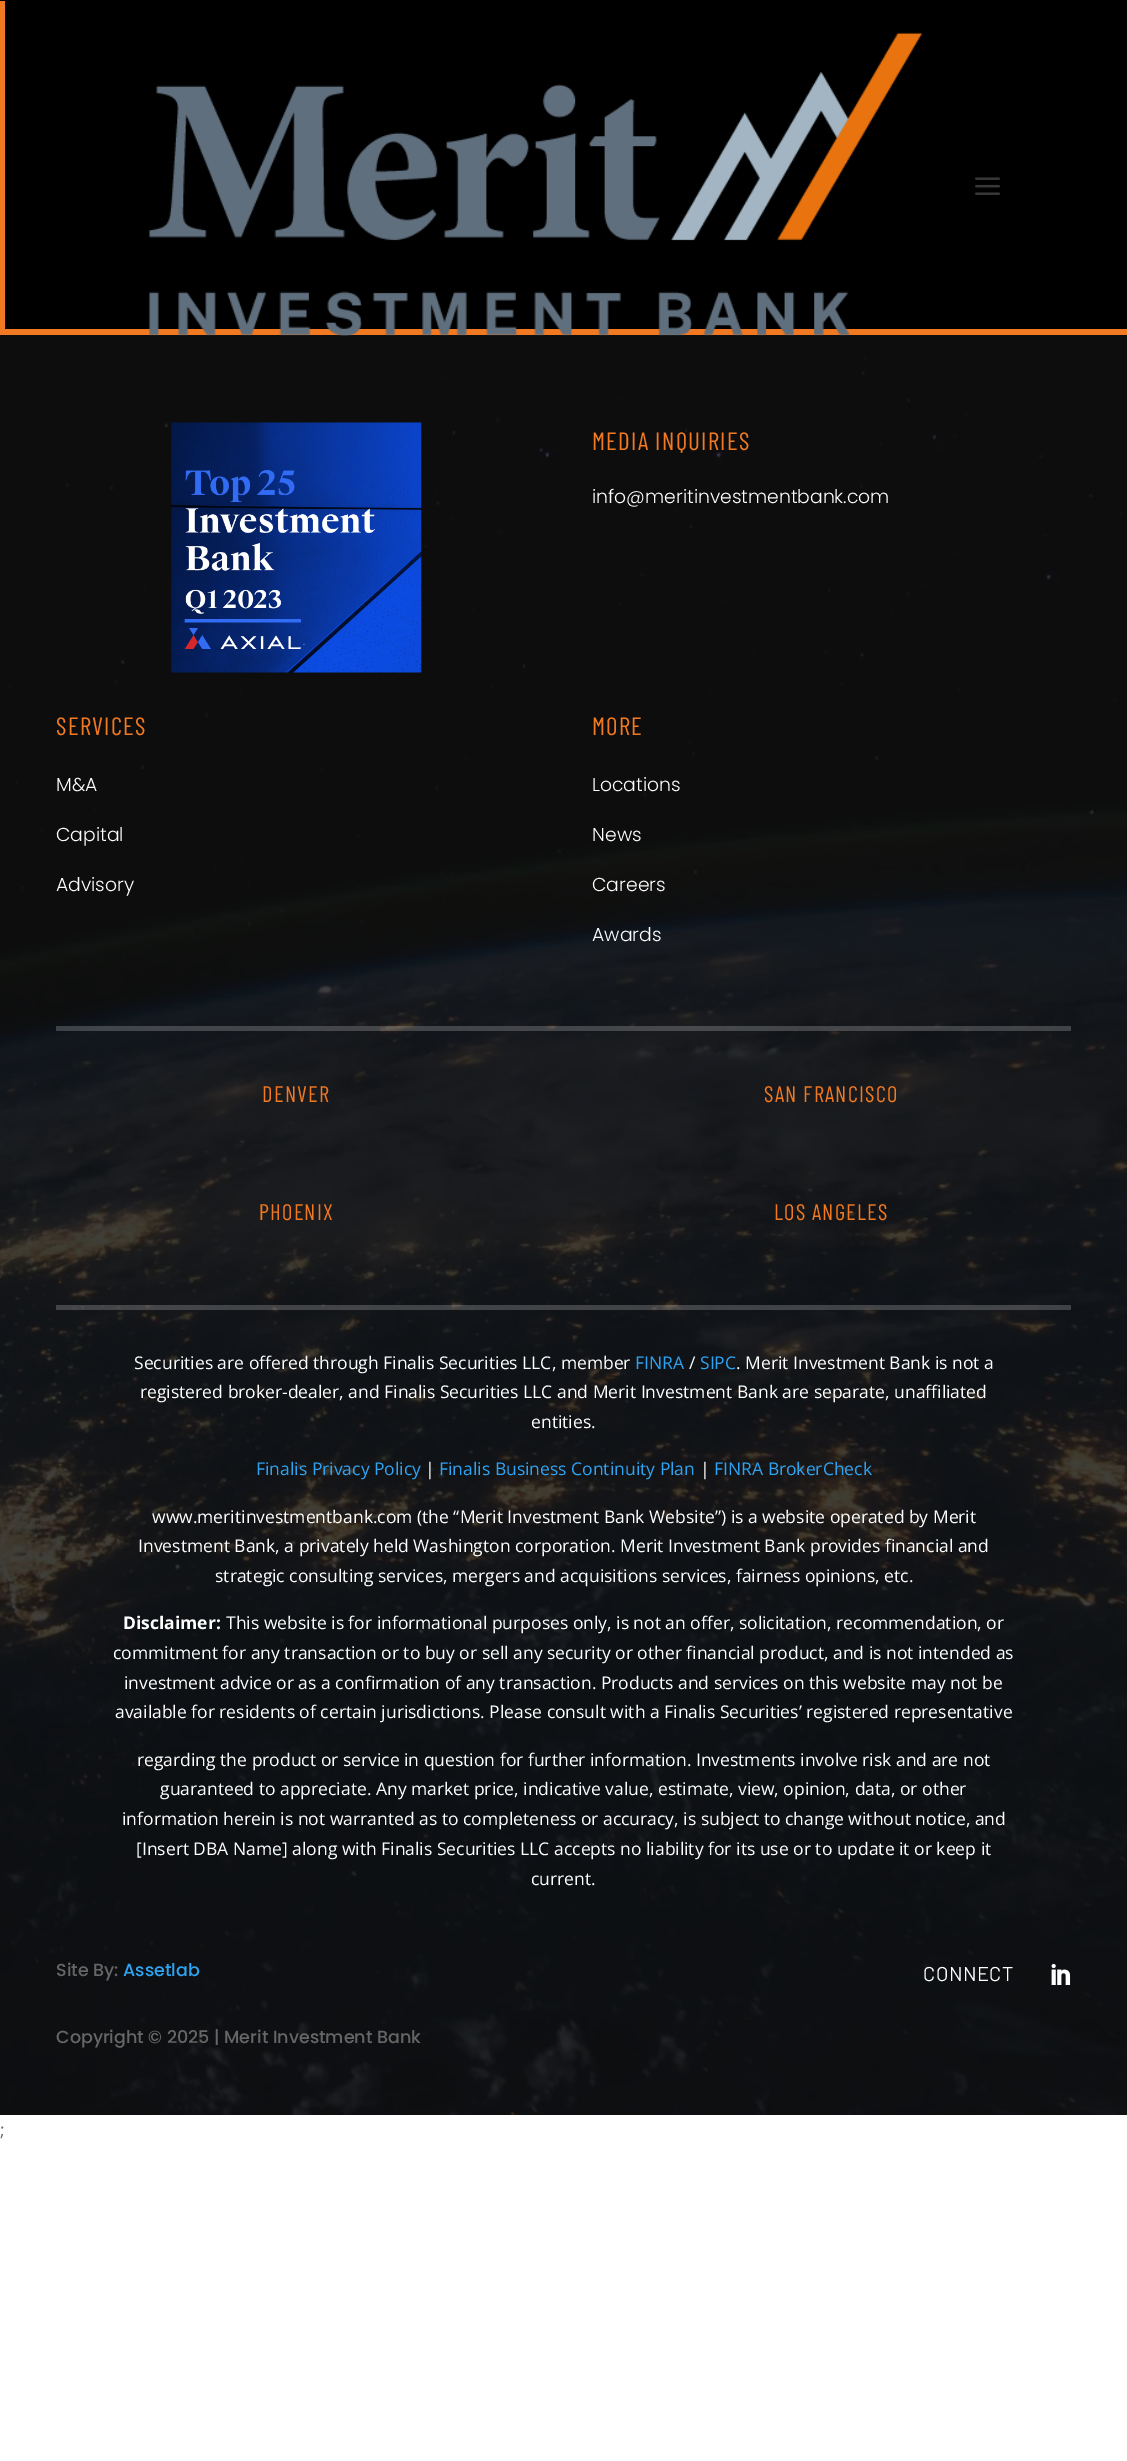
%!PS
<< /PageSize [1127 2461] /PageUsesTransparency true >> setpagedevice
/m/moveto load def
/C { dup -16 bitshift 255 div exch dup -8 bitshift 255 and 255 div exch 255 and 255 div setrgbcolor } def
/F { [ exch dup neg 0 0 3 -1 roll 0 0 ] selectfont } def
/T { moveto show } def
/R { rectfill } def
/A { dup .setfillconstantalpha .setstrokeconstantalpha } def
/I { 5 dict begin { /h /w /y /x /name } { exch def } forall
  gsave x y translate w h scale
  w h 8 [w 0 0 h 0 0] name (r) file false 3 colorimage grestore end } def
0 .pushpdf14devicefilter
0 2461 translate 1 -1 scale
4 setmiterlimit
16#FFFFFF C
0 0 1127 2461 R
16#000000 C
0 0 1127 329 R
16#F17921 C
0 329 1127 6 R
0 1 5 328 R
(3.rgb) 0 335 1127 1780 I
(1.rgb) 148 32 775 304 I
(2.rgb) 975 177 25 18 I
0.2 A
16#FFFFFF C
56 1026 1015 5 R
1 A
(4.rgb) 171 422 251 251 I
/BarlowCondensed-Regular 25 F
16#F17921 C
592 450 m 1.25 0 (MEDIA INQUIRIES) ashow
/Poppins-Light 18.75 F
16#FFFFFF C
(info@meritinvestmentbank.com) 592 503 T
/BarlowCondensed-Regular 25 F
16#F17921 C
56 735 m 1.25 0 (SERVICES) ashow
/Poppins-Light 18.75 F
16#FFFFFF C
(M&A) 56 791 T
(Capital) 56 841 T
(Advisory) 56 891 T
/BarlowCondensed-Regular 25 F
16#F17921 C
592 735 m 1.25 0 (MORE) ashow
/Poppins-Light 18.75 F
16#FFFFFF C
(Locations) 592 791 T
(News) 592 841 T
(Careers) 592 891 T
(Awards) 592 941 T
0.2 A
56 1305 1015 5 R
/BarlowCondensed-Regular 22.5 F
1 A
16#F17921 C
262 1102 m 1.25 0 (DENVER) ashow
764 1102 m 1.25 0 (SAN FRANCISCO) ashow
259 1220 m 1.25 0 (PHOENIX) ashow
774 1220 m 1.25 0 (LOS ANGELES) ashow
/OpenSans-Regular 17.5 F
16#FFFFFF C
(Securities are offered through Finalis Securities LLC, member) 134 1369 T
16#2EA3F2 C
(FINRA) 635 1369 T
16#FFFFFF C
(/) 689 1369 T
16#2EA3F2 C
(SIPC) 700 1369 T
16#FFFFFF C
(. Merit Investment Bank is not a) 736 1369 T
(registered broker-dealer, and Finalis Securities LLC and Merit Investment Bank are separate, unaffiliated) 140 1398 T
(entities.) 531 1428 T
16#2EA3F2 C
(Finalis Privacy Policy) 256 1475 T
16#FFFFFF C
(|) 425 1475 T
16#2EA3F2 C
(Finalis Business Continuity Plan) 439 1475 T
16#FFFFFF C
(|) 700 1475 T
16#2EA3F2 C
(FINRA BrokerCheck) 714 1475 T
16#FFFFFF C
(www.meritinvestmentbank.com \(the “Merit Investment Bank Website”\) is a website operated by Merit) 152 1523 T
(Investment Bank, a privately held Washington corporation. Merit Investment Bank provides financial and) 138 1552 T
(strategic consulting services, mergers and acquisitions services, fairness opinions, etc.) 215 1582 T
/OpenSans-Bold 17.5 F
(Disclaimer:) 123 1629 T
/OpenSans-Regular 17.5 F
(This website is for informational purposes only, is not an offer, solicitation, recommendation, or) 226 1629 T
(commitment for any transaction or to buy or sell any security or other financial product, and is not intended as) 113 1659 T
(investment advice or as a confirmation of any transaction. Products and services on this website may not be) 124 1689 T
(available for residents of certain jurisdictions. Please consult with a Finalis Securities’ registered representative) 115 1718 T
(regarding the product or service in question for further information. Investments involve risk and are not) 137 1766 T
(guaranteed to appreciate. Any market price, indicative value, estimate, view, opinion, data, or other) 160 1795 T
(information herein is not warranted as to completeness or accuracy, is subject to change without notice, and) 122 1825 T
([Insert DBA Name] along with Finalis Securities LLC accepts no liability for its use or to update it or keep it) 136 1855 T
(current.) 531 1885 T
/Poppins-Medium 17.5 F
16#666666 C
(Site By:) 56 1976 T
16#2EA3F2 C
(Assetlab) 123 1976 T
16#666666 C
(Copyright © 2025 | Merit Investment Bank) 56 2043 T
/Barlow-Regular 20 F
16#FFFFFF C
923 1981 m .5 0 (CONNECT) ashow
(5.rgb) 1051 1963 20 22 I
/OpenSans-Regular 17.5 F
16#666666 C
(;) 0 2136 T
.poppdf14devicefilter showpage
